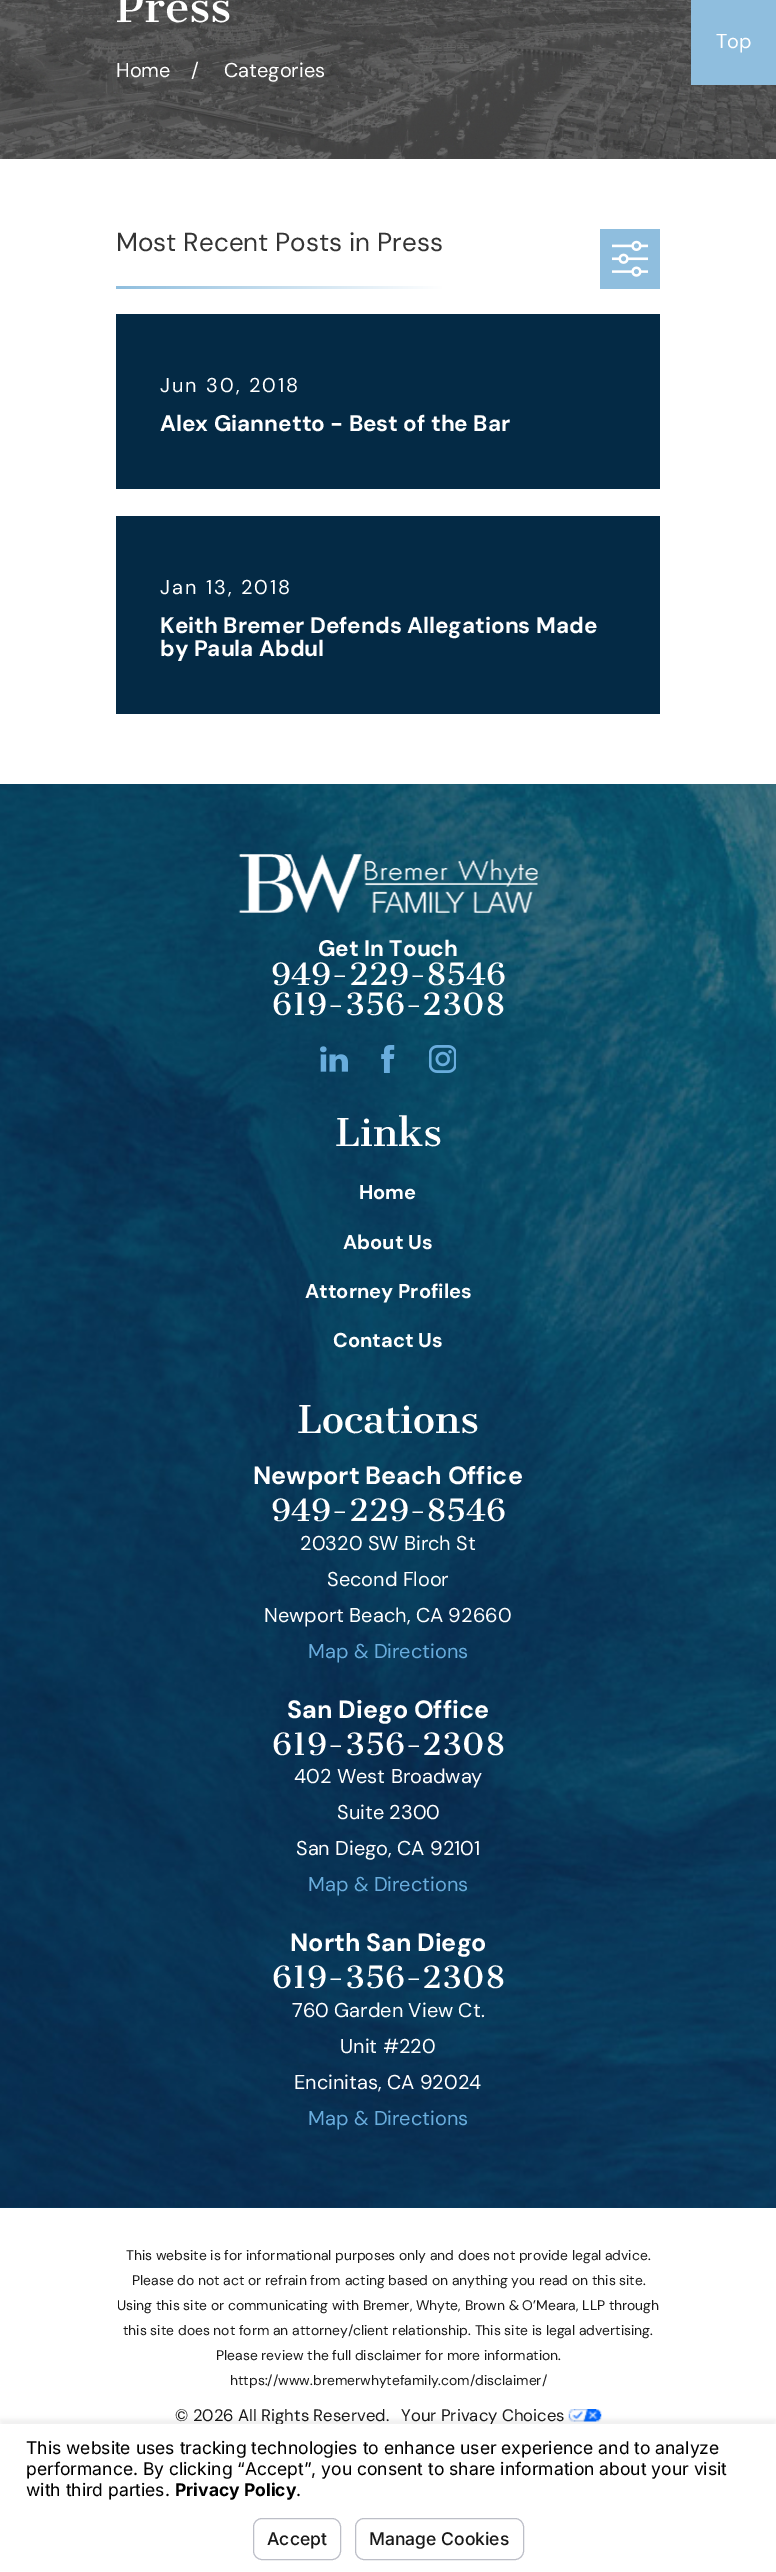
%!PS
<< /PageSize [776 2572] /PageUsesTransparency true >> setpagedevice
/m/moveto load def
/l/rlineto load def
/z/closepath load def
/s/stroke load def
/q/gsave load def
/Q_/grestore load def
/C { dup -16 bitshift 255 div exch dup -8 bitshift 255 and 255 div exch 255 and 255 div setrgbcolor } def
/F { [ exch dup neg 0 0 3 -1 roll 0 0 ] selectfont } def
/T { moveto show } def
/R { rectfill } def
/A { dup .setfillconstantalpha .setstrokeconstantalpha } def
/Q { 5 dict begin { /r /h /w /y /x } { exch def } forall
  x r add y moveto x w add y 2 copy h add r arct x w add y h add x 1 index r arct
  x y h add x y r arct x y 2 copy exch w add exch r arct closepath end } def
/S { 12 dict begin { /a /b /q /h /w /y /x } { exch def } forall gsave /was 0 def
  9 -2 -9 { dup b mul 4 div /e exch def 1 sub .425 mul 2.718 exch exp 1 add a .99 .min exch div /now exch def
    1 1 now sub 1 was sub div sub A /was now def
    w h .min e 2 mul add 0 gt { x e sub y e sub w e 2 mul add h e 2 mul add
      q e add b .6 mul add w h .min 2 div e add .min 0 .max Q fill } if } for grestore end } def
/I { 5 dict begin { /h /w /y /x /name } { exch def } forall
  gsave x y translate w h scale
  w h 8 [w 0 0 h 0 0] name (r) file false 3 colorimage grestore end } def
0 .pushpdf14devicefilter
0 2572 translate 1 -1 scale
4 setmiterlimit
16#FFFFFF C
0 0 776 2572 R
(1.rgb) 0 0 776 159 I
/CantataOne-Regular 42 F
(Press) 116 22 T
/DMSans-Regular 20 F
(Home) 116 77 T
(/) 191 77 T
(Categories) 224 77 T
/DMSans-Regular 26 F
16#343434 C
(Most Recent Posts in Press) 116 251 T
q 116 286 m 327 0 l 0 3 l -327 0 l z clip newpath
<< /ShadingType 2 /ColorSpace /DeviceRGB /Coords [116 288 443 288] /Extend [true true] /Function << /FunctionType 2 /Domain [0 1] /C0 [.561 .745 .871] /C1 [1 1 1] /N 1 >> >> shfill Q_
16#8FBEDE C
600 229 60 60 R
(2.rgb) 612 240 36 37 I
16#042A45 C
116 314 544 175 R
/DMSans-Regular 20 F
16#FFFFFF C
160 392 m 2 0 (Jun 30, 2018) ashow
/DMSans-Bold 22.5 F
(Alex Giannetto - Best of the Bar) 160 431 T
16#042A45 C
116 516 544 198 R
/DMSans-Regular 20 F
16#FFFFFF C
160 594 m 2 0 (Jan 13, 2018) ashow
/DMSans-Bold 22.5 F
(Keith Bremer Defends Allegations Made) 160 633 T
(by Paula Abdul) 160 656 T
16#8FBEDE C
691 0 85 85 R
/DMSans-Regular 20 F
16#FFFFFF C
(Top) 716 48 T
16#053F67 C
0 2207 776 1 R
(3.rgb) 0 784 776 1424 I
(4.rgb) 238 854 300 59 I
/DMSans-Bold 22.5 F
16#FFFFFF C
(Get In Touch) 318 956 T
/CantataOne-Regular 30 F
(949-229-8546) 271 985 T
(619-356-2308) 272 1015 T
(5.rgb) 320 1046 28 26 I
(6.rgb) 381 1045 14 28 I
(7.rgb) 429 1045 27 28 I
/CantataOne-Regular 37.5 F
(Links) 335 1146 T
/DMSans-Bold 20 F
(Home) 359 1199 T
(About Us) 343 1249 T
(Attorney Profiles) 305 1298 T
(Contact Us) 333 1347 T
/CantataOne-Regular 37.5 F
(Locations) 297 1433 T
/DMSans-Bold 25 F
(Newport Beach Office) 253 1484 T
/CantataOne-Regular 30 F
(949-229-8546) 271 1521 T
/DMSans-Regular 20 F
(20320 SW Birch St) 300 1550 T
(Second Floor) 327 1586 T
(Newport Beach, CA 92660) 264 1622 T
16#69ADDD C
(Map & Directions) 308 1658 T
/DMSans-Bold 25 F
16#FFFFFF C
(San Diego Office) 287 1718 T
/CantataOne-Regular 30 F
(619-356-2308) 272 1755 T
/DMSans-Regular 20 F
(402 West Broadway) 294 1783 T
(Suite 2300) 337 1819 T
(San Diego, CA 92101) 296 1855 T
16#69ADDD C
(Map & Directions) 308 1891 T
/DMSans-Bold 25 F
16#FFFFFF C
(North San Diego) 290 1951 T
/CantataOne-Regular 30 F
(619-356-2308) 272 1988 T
/DMSans-Regular 20 F
(760 Garden View Ct.) 292 2017 T
(Unit #220) 340 2053 T
(Encinitas, CA 92024) 294 2089 T
16#69ADDD C
(Map & Directions) 308 2125 T
/DMSans-Regular 13.9 F
16#191919 C
(This website is for informational purposes only and does not provide legal advice.) 126 2260 T
(Please do not act or refrain from acting based on anything you read on this site.) 132 2285 T
(Using this site or communicating with Bremer, Whyte, Brown & O’Meara, LLP through) 117 2310 T
(this site does not form an attorney/client relationship. This site is legal advertising.) 123 2335 T
(Please review the full disclaimer for more information.) 216 2360 T
(https://www.bremerwhytefamily.com/disclaimer/) 230 2385 T
/DMSans-Regular 16.7 F
(© 2026 All Rights Reserved.) 175 2421 T
(Your Privacy Choices) 401 2421 T
(8.rgb) 568 2409 34 13 I
16#000000 C
0 2419 776 149 0 2 .05 S
16#FFFFFF C
0 2424 776 146 R
/Inter-Regular 17.5 F
16#000000 C
(This website uses tracking technologies to enhance user experience and to analyze) 26 2454 T
(performance. By clicking “Accept”, you consent to share information about your visit) 26 2475 T
(with third parties.) 26 2496 T
/Inter-Bold 17.5 F
(Privacy Policy) 175 2496 T
/Inter-Regular 17.5 F
(.) 296 2496 T
16#BCBEC7 C
253.5 2518.5 87 41 8.5 Q s
/Inter-Medium 17.5 F
16#191919 C
(Accept) 267 2545 T
16#BCBEC7 C
355.5 2518.5 168 41 8.5 Q s
16#191919 C
(Manage Cookies) 369 2545 T
.poppdf14devicefilter showpage
